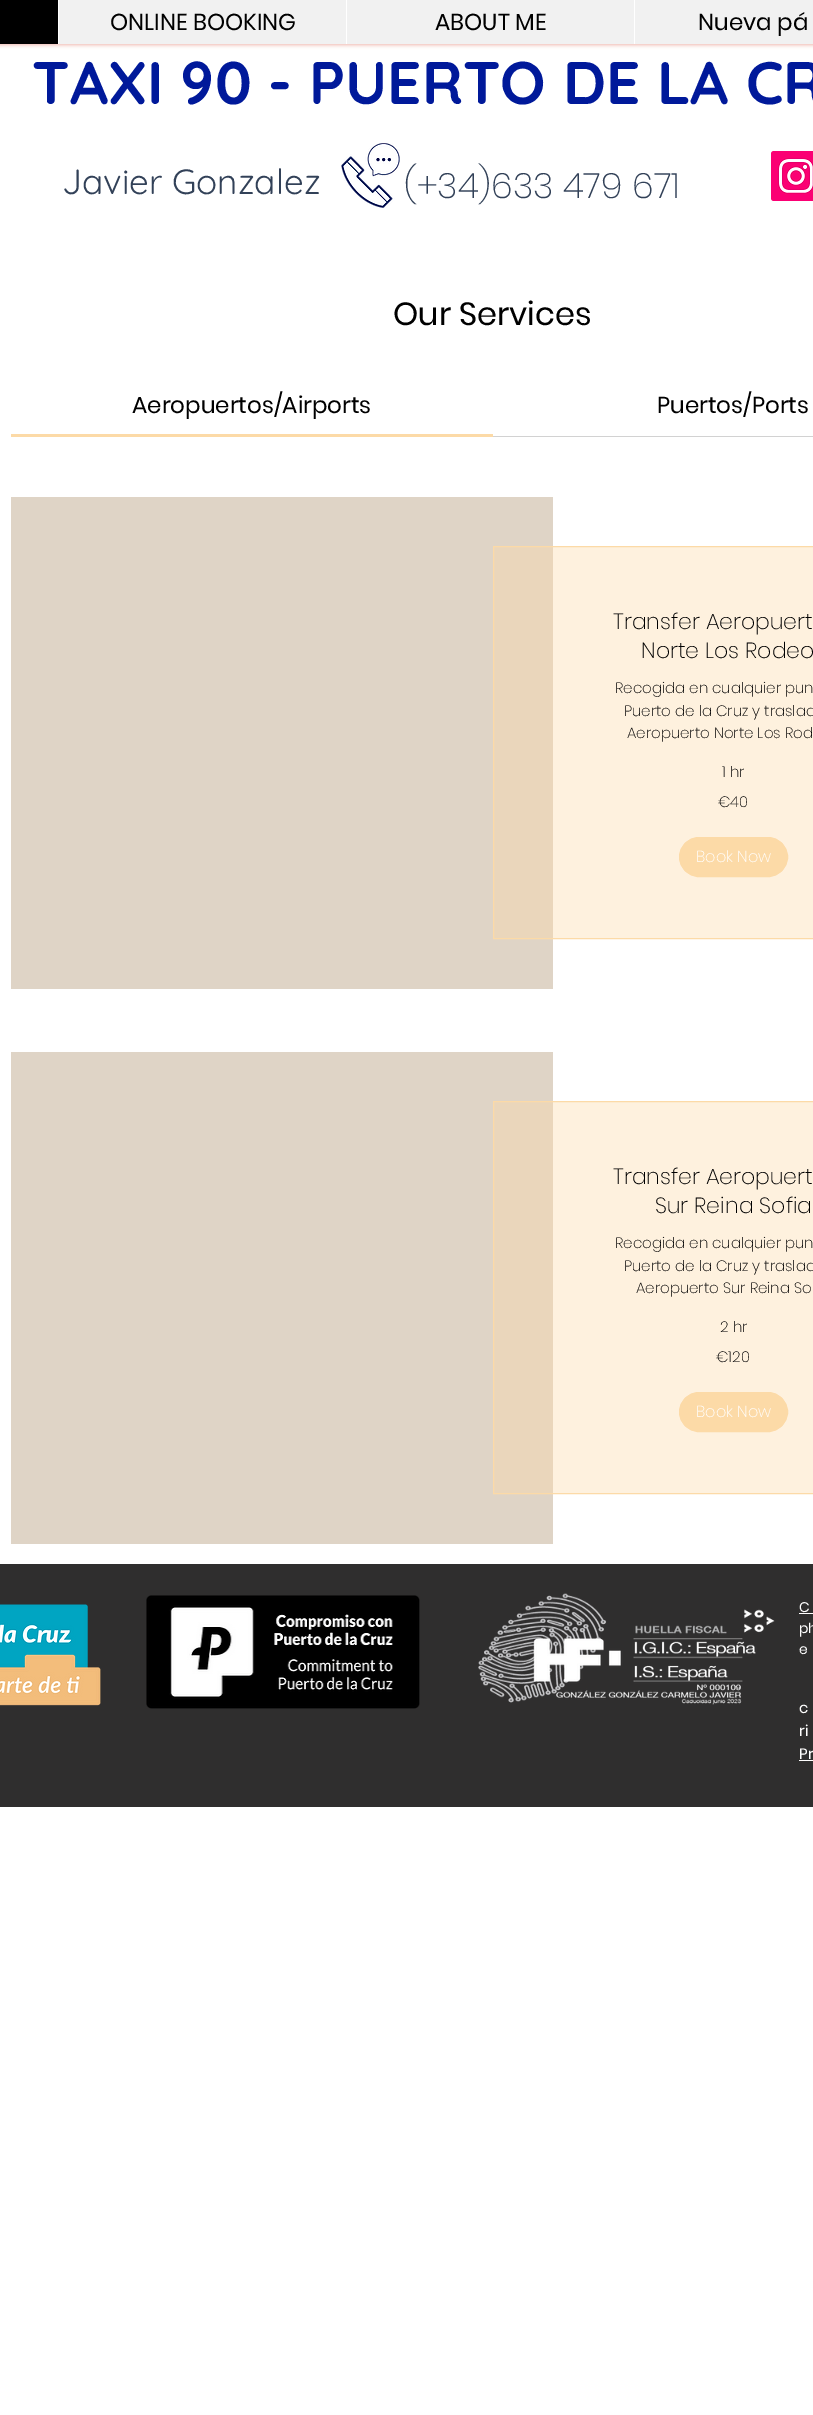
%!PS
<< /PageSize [813 2415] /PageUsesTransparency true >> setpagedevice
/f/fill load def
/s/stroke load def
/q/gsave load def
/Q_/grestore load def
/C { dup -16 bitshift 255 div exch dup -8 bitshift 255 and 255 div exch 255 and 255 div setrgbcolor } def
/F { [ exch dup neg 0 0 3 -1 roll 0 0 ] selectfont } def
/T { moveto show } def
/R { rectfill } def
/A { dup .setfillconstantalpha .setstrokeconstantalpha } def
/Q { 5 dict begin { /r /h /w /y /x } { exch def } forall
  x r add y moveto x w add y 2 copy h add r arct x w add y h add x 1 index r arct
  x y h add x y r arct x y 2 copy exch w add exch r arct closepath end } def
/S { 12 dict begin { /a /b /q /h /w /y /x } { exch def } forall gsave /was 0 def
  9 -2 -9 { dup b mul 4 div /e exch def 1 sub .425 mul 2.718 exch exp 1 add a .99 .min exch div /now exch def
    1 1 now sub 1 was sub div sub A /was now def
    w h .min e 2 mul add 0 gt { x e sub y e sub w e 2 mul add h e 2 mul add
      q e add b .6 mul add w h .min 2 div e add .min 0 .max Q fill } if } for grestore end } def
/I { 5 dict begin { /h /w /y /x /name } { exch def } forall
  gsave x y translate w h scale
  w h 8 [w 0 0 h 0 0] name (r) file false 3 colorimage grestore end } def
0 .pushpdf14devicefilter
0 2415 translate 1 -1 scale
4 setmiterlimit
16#FFFFFF C
0 0 813 2415 R
16#FEF1DE C
553 1102 260 391 R
553 547 260 391 R
16#E28371 C
-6 1 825 44 0 2 .6 S
16#F1F1F1 C
59 0 754 44 R
16#000000 C
0 0 58 44 R
16#FFFFFF C
58 0 1 44 R
/Poppins-Regular 23 F
16#000000 C
(ONLINE BOOKING) 110 30 T
16#FFFFFF C
346 0 1 44 R
16#000000 C
(ABOUT ME) 435 30 T
16#FFFFFF C
634 0 1 44 R
16#000000 C
(Nueva pá) 698 30 T
/Quicksand-Bold 60 F
16#00199A C
(TAXI 90 - PUERTO DE LA CR) 32 104 T
/Quicksand-Regular 35 F
16#324158 C
(Javier Gonzalez) 62 194 T
(1.rgb) 341 143 59 65 I
/Poppins-ExtraLight 35 F
(\(+34\)633 479 671) 404 198 T
(2.rgb) 771 151 42 50 I
/Poppins-Regular 32 F
16#000000 C
(Our Services) 393 325 T
16#FCDAA7 C
11 434 482 3 R
/Poppins-Regular 23 F
16#000000 C
(Aeropuertos/Airports) 132 413 T
16#D2D2D2 C
493 436 320 1 R
16#000000 C
(Puertos/Ports) 657 413 T
16#DFD4C6 C
11 497 542 492 R
16#EAD6BB C
494 547 59 391 R
16#FCDAA7 C
493.5 546.5 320 392 rectstroke
/Poppins-ExtraLight 22 F
16#000000 C
(Transfer Aeropuert) 613 629 T
(Norte Los Rodeo) 641 658 T
/Poppins-ExtraLight 15 F
(Recogida en cualquier pun) 615 693 T
(Puerto de la Cruz y traslad) 624 716 T
(Aeropuerto Norte Los Rod) 627 738 T
(1 hr) 722 777 T
(€40) 718 807 T
16#FCDAA7 C
679.5 837.5 108 39 19.5 Q q f Q_
s
/Poppins-ExtraLight 16 F
16#FFFFFF C
(Book Now) 696 862 T
16#DFD4C6 C
11 1052 542 492 R
16#EAD6BB C
494 1102 59 391 R
16#FCDAA7 C
493.5 1101.5 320 392 rectstroke
/Poppins-ExtraLight 22 F
16#000000 C
(Transfer Aeropuert) 613 1184 T
(Sur Reina Sofia) 655 1213 T
/Poppins-ExtraLight 15 F
(Recogida en cualquier pun) 615 1248 T
(Puerto de la Cruz y traslad) 624 1271 T
(Aeropuerto Sur Reina So) 636 1293 T
(2 hr) 720 1332 T
(€120) 716 1362 T
16#FCDAA7 C
679.5 1392.5 108 39 19.5 Q q f Q_
s
/Poppins-ExtraLight 16 F
16#FFFFFF C
(Book Now) 696 1417 T
16#2F2E2E C
0 1564 813 243 R
(3.rgb) 0 1604 101 102 I
(4.rgb) 146 1595 274 114 I
(5.rgb) 478 1593 297 112 I
/Poppins-Regular 14 F
16#FFFFFF C
(C) 799 1612 T
799 1613 14 1 R
(ph) 799 1633 T
(e) 799 1654 T
/Poppins-Regular 15 F
(c) 799 1713 T
(ri) 799 1736 T
(Pr) 799 1759 T
799 1760 14 1 R
.poppdf14devicefilter showpage
